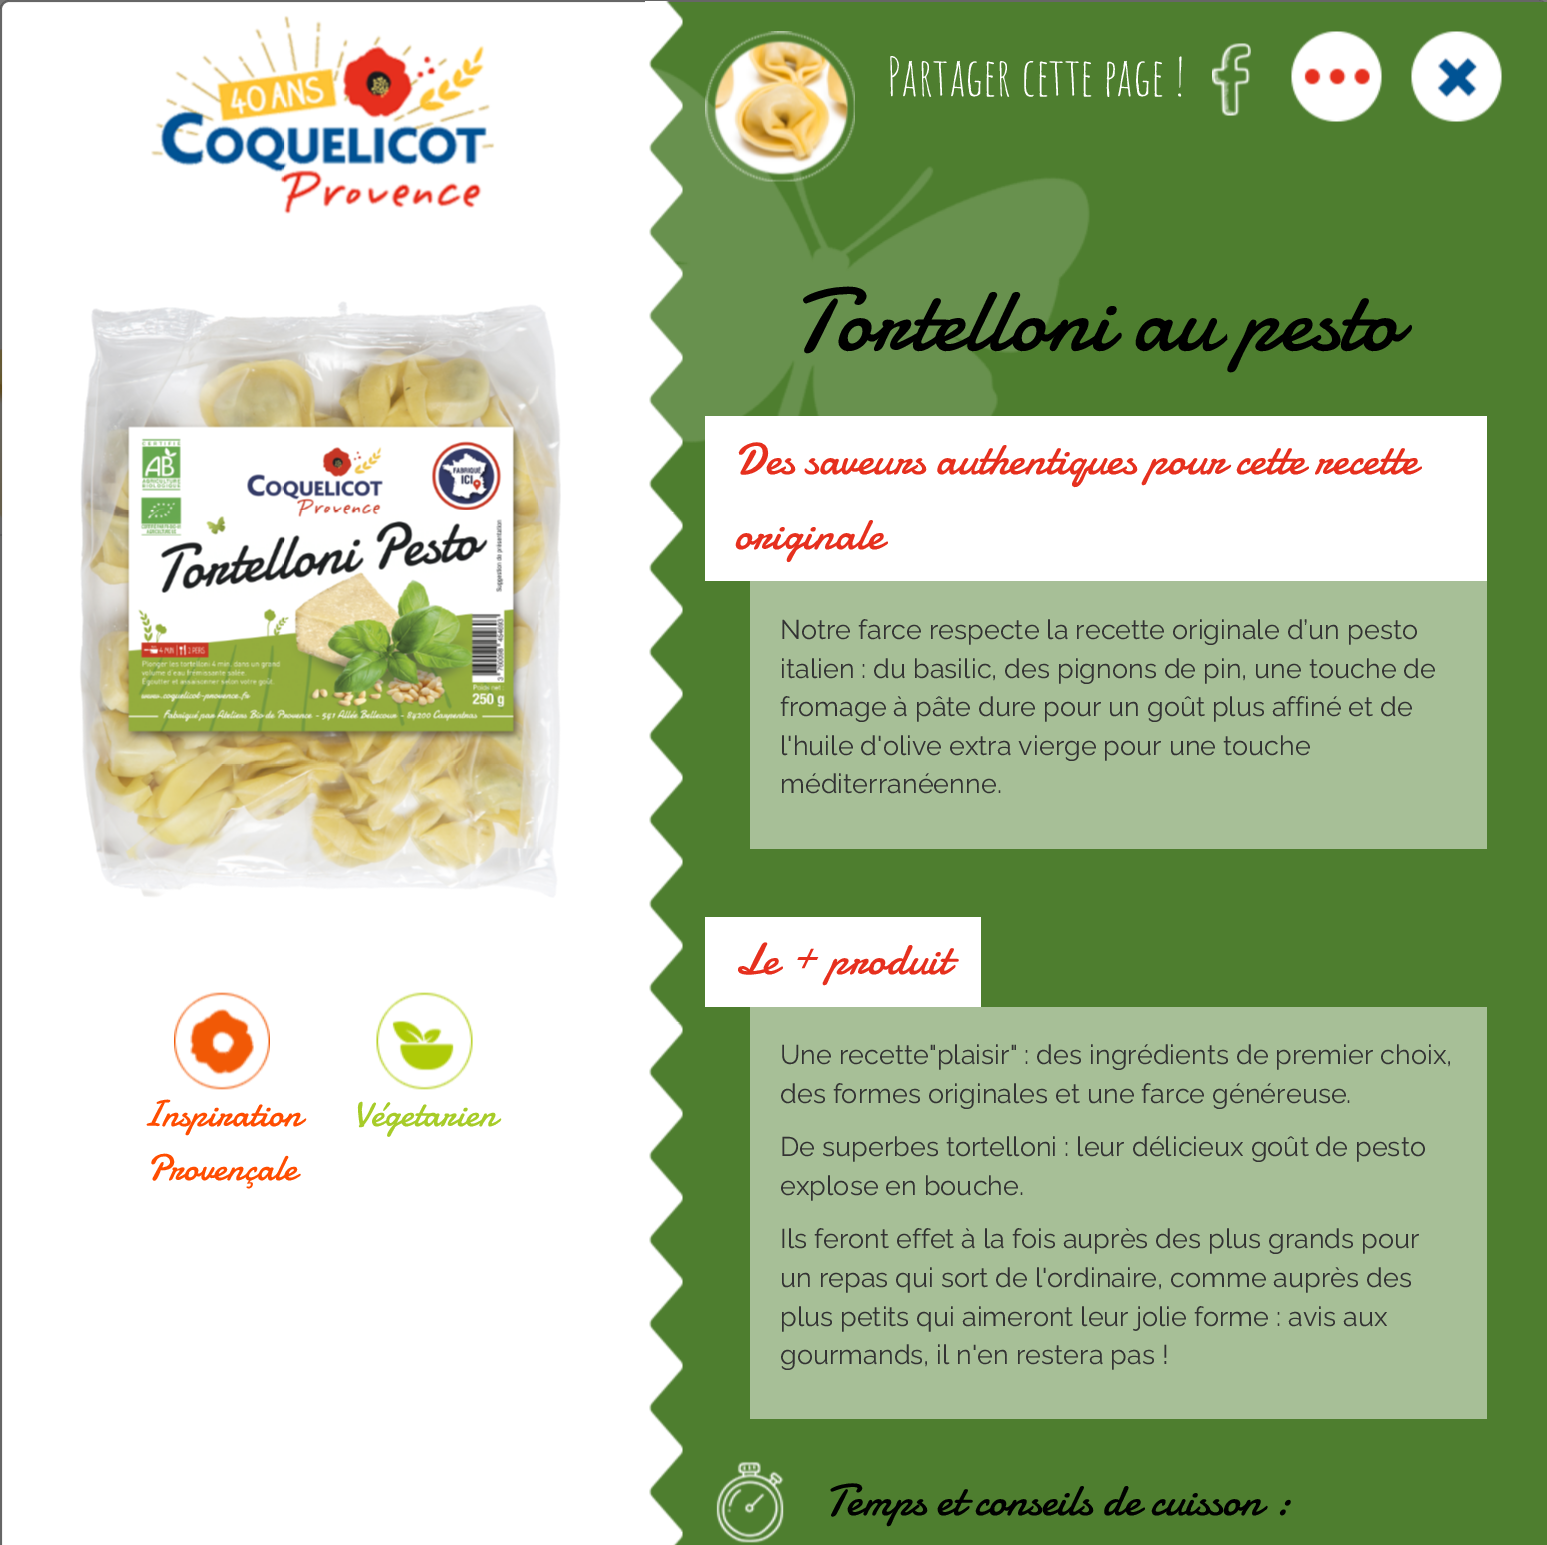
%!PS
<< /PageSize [1547 1545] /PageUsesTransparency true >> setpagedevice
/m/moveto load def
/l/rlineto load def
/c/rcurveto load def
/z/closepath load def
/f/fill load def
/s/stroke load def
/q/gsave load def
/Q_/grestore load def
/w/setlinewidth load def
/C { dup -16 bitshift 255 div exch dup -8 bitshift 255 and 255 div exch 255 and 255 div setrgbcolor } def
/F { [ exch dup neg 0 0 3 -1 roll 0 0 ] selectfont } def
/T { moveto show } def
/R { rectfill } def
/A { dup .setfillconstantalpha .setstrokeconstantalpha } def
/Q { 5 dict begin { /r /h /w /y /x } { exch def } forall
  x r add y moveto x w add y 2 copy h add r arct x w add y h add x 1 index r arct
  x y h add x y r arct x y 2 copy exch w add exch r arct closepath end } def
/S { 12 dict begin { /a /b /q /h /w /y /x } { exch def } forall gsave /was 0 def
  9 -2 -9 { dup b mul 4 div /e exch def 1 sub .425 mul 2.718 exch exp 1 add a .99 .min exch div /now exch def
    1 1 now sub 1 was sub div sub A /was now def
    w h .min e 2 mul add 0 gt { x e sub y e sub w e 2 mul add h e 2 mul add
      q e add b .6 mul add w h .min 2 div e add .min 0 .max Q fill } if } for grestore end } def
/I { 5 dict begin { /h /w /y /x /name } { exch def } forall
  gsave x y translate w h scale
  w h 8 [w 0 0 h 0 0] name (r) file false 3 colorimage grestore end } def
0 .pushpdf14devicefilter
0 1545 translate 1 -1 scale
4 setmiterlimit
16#808080 C
0 0 1547 1545 R
(1.rgb) 0 232 2 287 I
(2.rgb) 0 514 2 20 I
16#6F6F6F C
0 534 2 2 R
q
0 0 m 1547 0 l 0 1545 l -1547 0 l z 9 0 m 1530 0 l 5 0 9 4 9 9 c 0 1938 l 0 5 -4 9 -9 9 c -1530 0 l -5 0 -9 -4 -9 -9 c 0 -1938 l 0 -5 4 -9 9 -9 c z eoclip newpath
16#000000 C
0 8 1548 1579 9 11 .5 S
Q_
16#FFFFFF C
10 2 m 1529 0 l 4.5 0 8 3.5 8 8 c 0 1535 l -1545 0 l 0 -1535 l 0 -4.5 3.5 -8 8 -8 c z f
0.2 A
16#000000 C
2 w
1 1 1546 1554 8 Q s
1 A
(3.rgb) 151 15 344 199 I
(4.rgb) 79 301 482 597 I
(5.rgb) 174 992 96 98 I
/Damion-Regular 37.5 F
16#FF4D00 C
(Inspiration) 142 1126 T
(Provençale) 147 1180 T
(6.rgb) 376 992 97 98 I
16#A7CC29 C
(Végetarien) 353 1126 T
16#4E7E2F C
649 2 898 1543 R
(7.rgb) 649 67 441 376 I
(8.rgb) 645 1 38 1544 I
/AmaticSC-Regular 52.5 F
16#FFFFFF C
(Partager cette page !) 887 96 T
(9.rgb) 1212 43 39 73 I
(10.rgb) 1291 31 91 91 I
(11.rgb) 1411 31 91 91 I
(12.rgb) 705 31 150 151 I
/Damion-Regular 90 F
16#000000 C
(Tortelloni au pesto) 792 350 T
16#FFFFFF C
705 416 782 165 R
/Damion-Regular 45 F
16#E6301E C
(Des saveurs authentiques pour cette recette) 735 474 T
(originale) 735 549 T
16#A7BF97 C
750 581 737 268 R
/Raleway-Thin 27 F
16#333333 C
(Notre farce respecte la recette originale d’un pesto) 780 639 T
(italien : du basilic, des pignons de pin, une touche de) 780 678 T
(fromage à pâte dure pour un goût plus affiné et de) 780 716 T
(l'huile d'olive extra vierge pour une touche) 780 755 T
(méditerranéenne.) 780 793 T
16#FFFFFF C
705 917 276 90 R
/Damion-Regular 45 F
16#E6301E C
(Le + produit) 735 974 T
16#A7BF97 C
750 1007 737 412 R
/Raleway-Thin 27 F
16#333333 C
(Une recette"plaisir" : des ingrédients de premier choix,) 780 1064 T
(des formes originales et une farce généreuse.) 780 1103 T
(De superbes tortelloni : leur délicieux goût de pesto) 780 1156 T
(explose en bouche.) 780 1195 T
(Ils feront effet à la fois auprès des plus grands pour) 780 1248 T
(un repas qui sort de l'ordinaire, comme auprès des) 780 1287 T
(plus petits qui aimeront leur jolie forme : avis aux) 780 1326 T
(gourmands, il n'en restera pas !) 780 1364 T
(13.rgb) 716 1461 68 82 I
/Damion-Regular 45 F
16#000000 C
(Temps et conseils de cuisson :) 825 1515 T
.poppdf14devicefilter showpage
